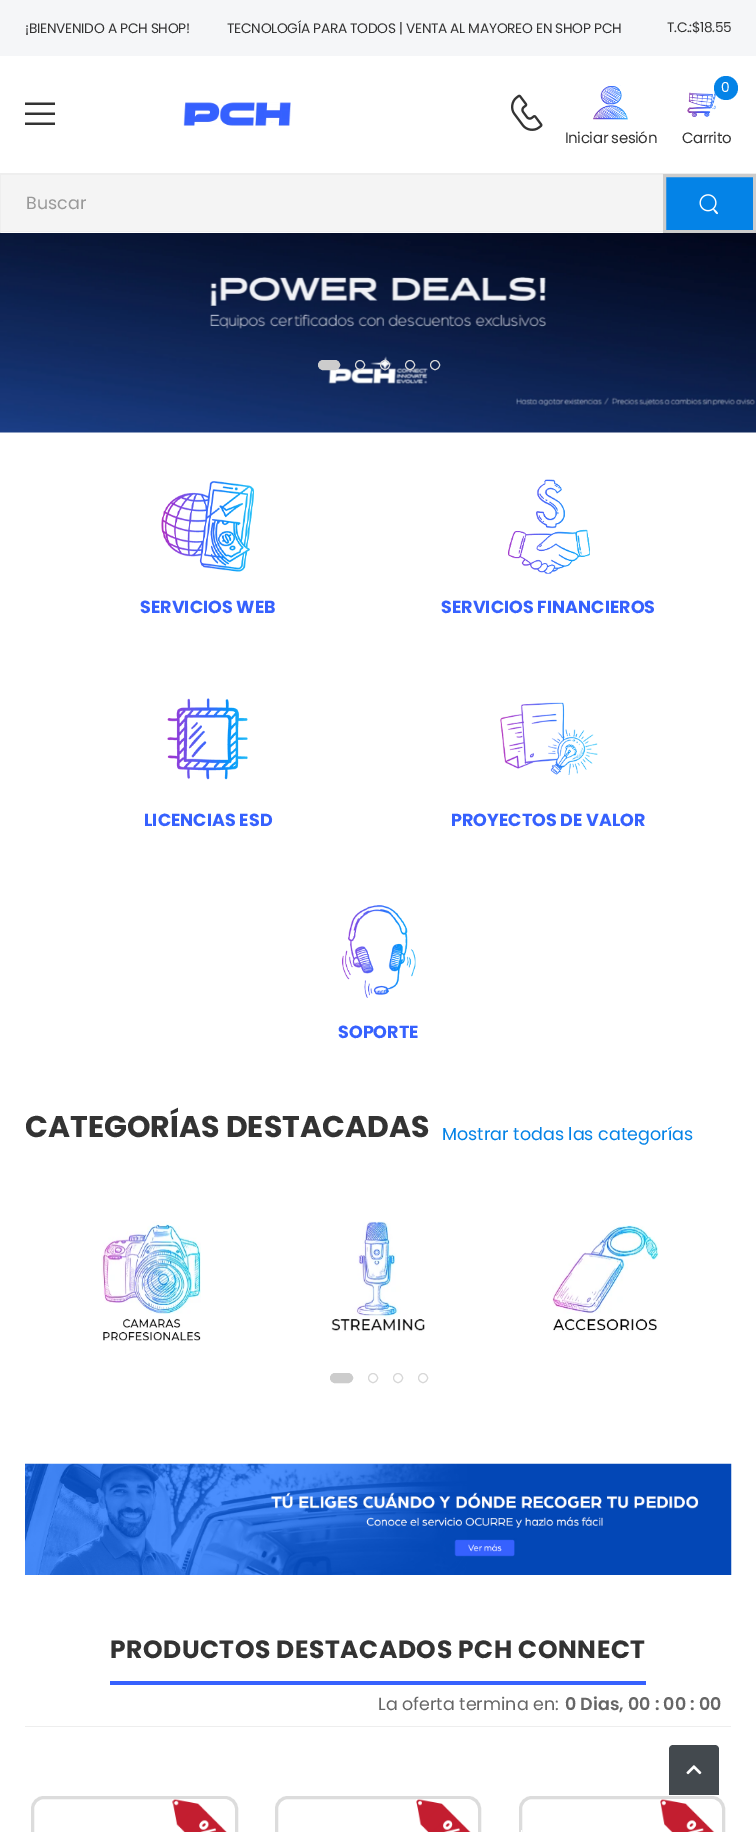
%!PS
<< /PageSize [756 1832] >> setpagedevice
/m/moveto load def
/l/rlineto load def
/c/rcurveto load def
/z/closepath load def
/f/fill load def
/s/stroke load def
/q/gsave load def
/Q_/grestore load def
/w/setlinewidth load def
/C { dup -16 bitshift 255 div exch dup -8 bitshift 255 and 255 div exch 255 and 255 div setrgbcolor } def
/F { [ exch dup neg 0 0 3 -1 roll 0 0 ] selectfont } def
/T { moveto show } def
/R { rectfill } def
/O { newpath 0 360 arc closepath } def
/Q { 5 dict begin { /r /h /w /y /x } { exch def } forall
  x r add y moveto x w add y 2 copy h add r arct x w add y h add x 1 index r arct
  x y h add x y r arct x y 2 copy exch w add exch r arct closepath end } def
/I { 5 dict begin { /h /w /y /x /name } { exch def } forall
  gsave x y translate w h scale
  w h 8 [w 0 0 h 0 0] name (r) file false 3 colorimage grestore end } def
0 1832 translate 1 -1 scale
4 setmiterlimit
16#FFFFFF C
0 0 756 1832 R
16#F5F6F8 C
0 0 756 56 R
/Poppins-Regular 13.75 F
16#333333 C
25 33 m -.3 0 (¡BIENVENIDO A PCH SHOP!) ashow
227 33 m -.3 0 (TECNOLOGÍA PARA TODOS | VENTA AL MAYOREO EN SHOP PCH) ashow
667 32 m -.4 0 (T.C.:$18.55) ashow
16#EEEEEE C
0 173 756 1 R
(1.rgb) 25 102 30 23 I
(2.rgb) 183 102 108 24 I
(3.rgb) 511 94 32 37 I
(4.rgb) 687 92 30 25 I
16#0483E7 C
726 88 12 O f
16#FFFFFF C
(0) 721 92 T
/Poppins-Regular 15 F
16#333333 C
682 143 m -.4 0 (Carrito) ashow
(5.rgb) 593 85 35 35 I
565 143 m -.4 0 (Iniciar sesión) ashow
16#F4F4F4 C
1 175 662 56 R
16#EEEEEE C
0 174 663 1 R
0 231 663 1 R
0 174 1 59 R
/Poppins-Regular 17.5 F
16#999999 C
(Buscar) 26 209 T
16#0483E7 C
664.5 175.5 m 90 0 l 0 56 l -90 0 l z q f Q_
16#CCCCCC C
3 w
s
(6.rgb) 699 194 19 21 I
(7.rgb) 0 233 756 200 I
318.5 360.5 21 9 4.5 Q q f Q_
1 w
s
16#D7D7D7 C
360 365 4.5 O s
385 365 4.5 O s
410 365 4.5 O s
435 365 4.5 O s
(8.rgb) 161 481 93 91 I
/Poppins-Bold 17.5 F
16#3661FE C
(SERVICIOS WEB) 140 613 T
(9.rgb) 508 479 82 95 I
(SERVICIOS FINANCIEROS) 441 613 T
(10.rgb) 167 698 81 82 I
(LICENCIAS ESD) 144 826 T
(11.rgb) 500 702 98 73 I
(PROYECTOS DE VALOR) 451 826 T
(12.rgb) 342 905 74 93 I
(SOPORTE) 338 1038 T
/Poppins-Bold 30 F
16#333333 C
(CATEGORÍAS DESTACADAS) 25 1137 T
/Poppins-Regular 17.5 F
16#0483E7 C
(Mostrar todas las categorías) 442 1140 T
(13.rgb) 101 1221 100 120 I
(14.rgb) 331 1221 94 111 I
(15.rgb) 552 1225 107 107 I
16#CCCCCC C
330.5 1373.5 22 9 4.5 Q q f Q_
s
16#D7D7D7 C
373 1378 4.5 O s
398 1378 4.5 O s
423 1378 4.5 O s
(16.rgb) 25 1463 707 112 I
/Poppins-Bold 25 F
16#333333 C
110 1658 m .5 0 (PRODUCTOS DESTACADOS PCH CONNECT) ashow
16#3661FE C
110 1681 536 4 R
/Poppins-Regular 17.5 F
16#666666 C
(La oferta termina en:) 378 1710 T
/Poppins-SemiBold 17.5 F
(0 Dias, 00 : 00 : 00) 565 1710 T
16#EEEEEE C
25 1726 706 1 R
16#DCDCDC C
3 w
32.5 1797.5 204 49 11.5 Q s
(17.rgb) 172 1799 55 33 I
276.5 1797.5 203 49 11.5 Q s
(18.rgb) 416 1799 55 33 I
520.5 1797.5 203 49 11.5 Q s
16#FFFFFF C
521 1830 1 2 R
(19.rgb) 660 1799 55 33 I
16#43494E C
673 1745 m 42 0 l 2 0 4 2 4 4 c 0 46 l -50 0 l 0 -46 l 0 -2 2 -4 4 -4 c z f
(20.rgb) 686 1765 16 10 I
showpage
